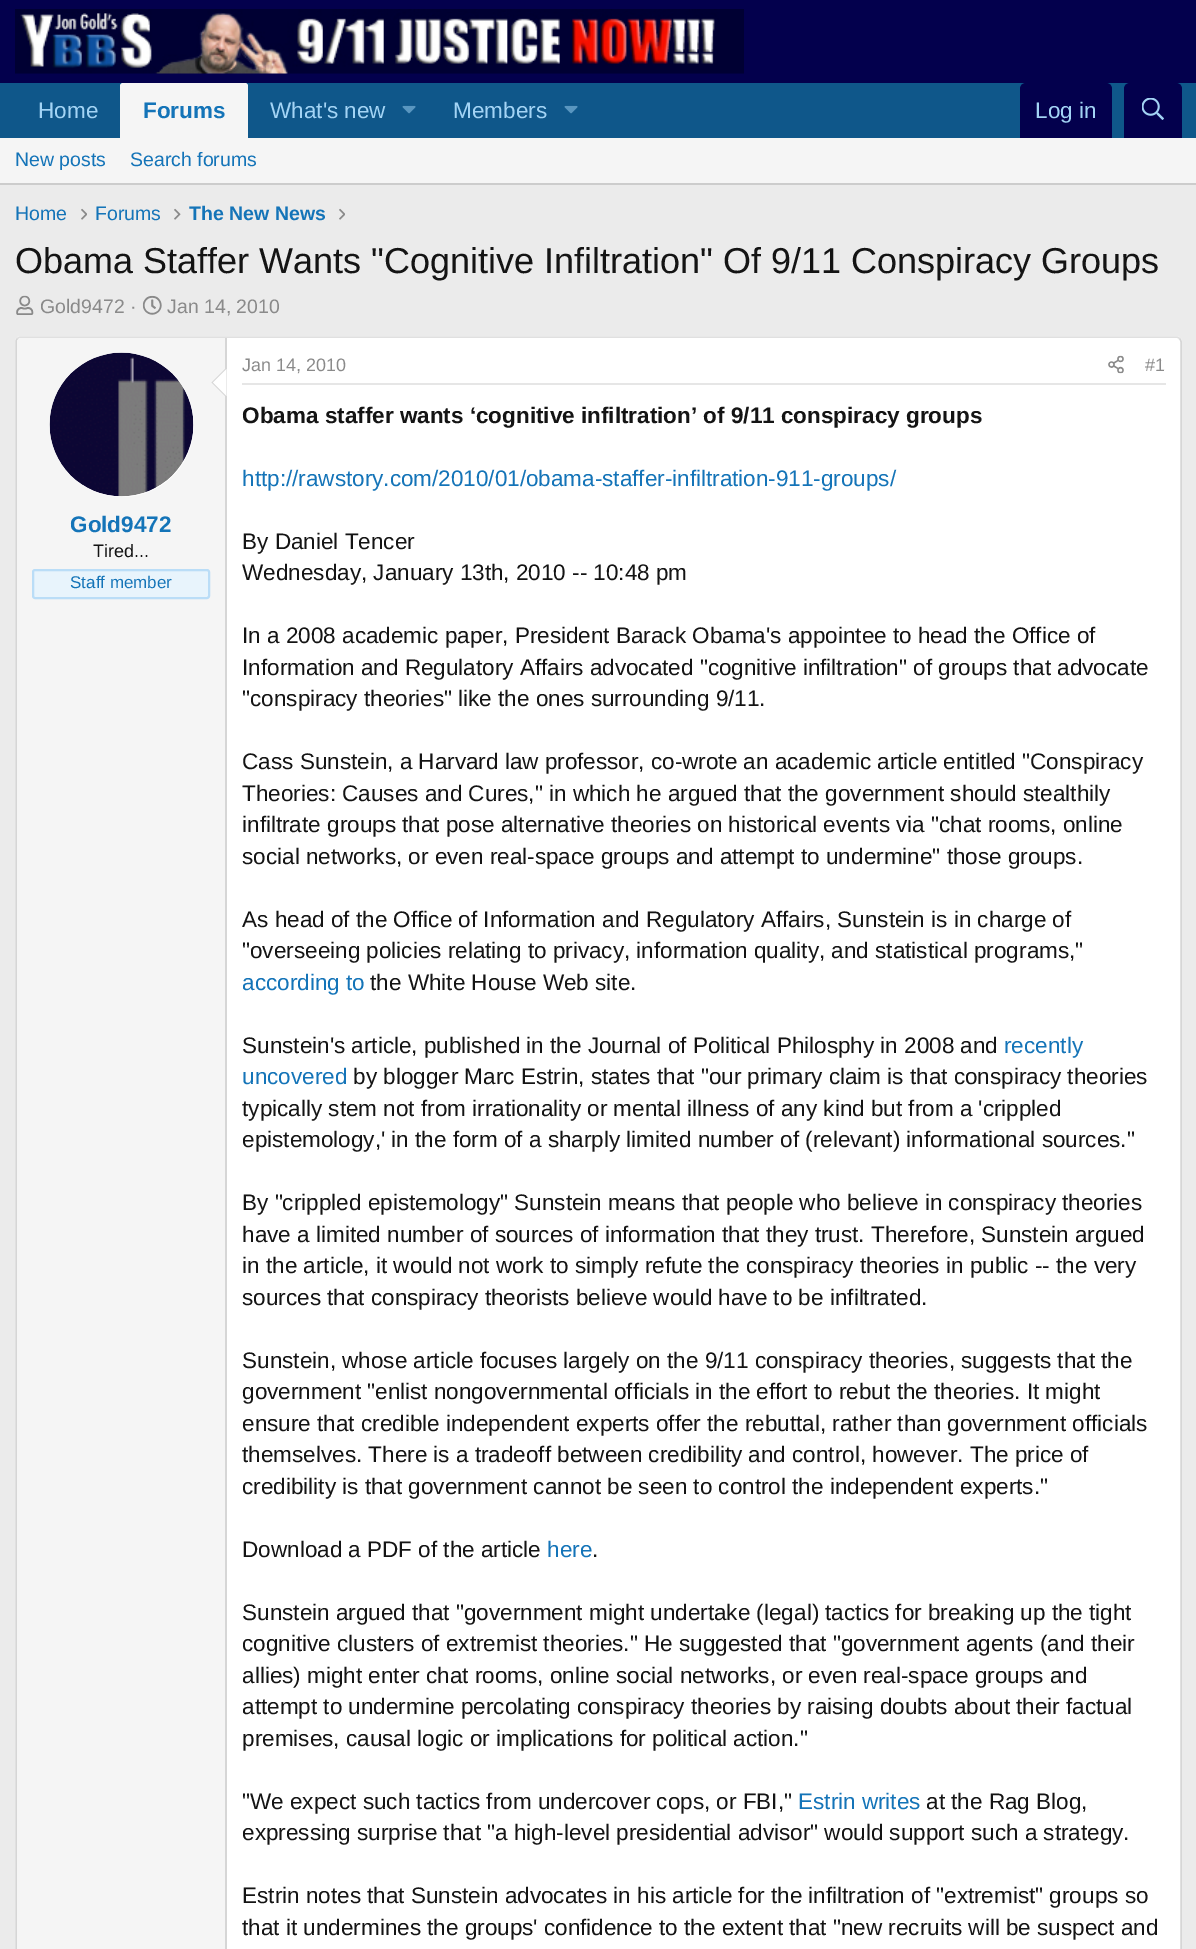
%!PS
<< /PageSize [1196 1949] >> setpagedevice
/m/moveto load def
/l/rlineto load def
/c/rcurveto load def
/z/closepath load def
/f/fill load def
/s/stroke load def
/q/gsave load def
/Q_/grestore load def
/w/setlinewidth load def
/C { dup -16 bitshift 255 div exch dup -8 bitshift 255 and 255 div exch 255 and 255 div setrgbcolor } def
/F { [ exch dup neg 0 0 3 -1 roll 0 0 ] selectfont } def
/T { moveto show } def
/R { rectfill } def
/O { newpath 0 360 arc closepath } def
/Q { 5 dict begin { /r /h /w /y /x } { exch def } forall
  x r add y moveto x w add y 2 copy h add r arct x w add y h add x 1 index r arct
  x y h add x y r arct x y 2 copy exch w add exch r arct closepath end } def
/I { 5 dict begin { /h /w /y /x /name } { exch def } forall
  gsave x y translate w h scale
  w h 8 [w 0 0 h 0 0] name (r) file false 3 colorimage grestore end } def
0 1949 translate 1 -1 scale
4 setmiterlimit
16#EBEBEB C
0 0 1196 1949 R
16#03004D C
0 0 1196 83 R
(1.rgb) 15 9 729 65 I
16#0F578A C
0 83 1196 55 R
/LiberationSans-Regular 22.5 F
16#A3D4F5 C
(Home) 38 118 T
16#F5F5F5 C
123 83 m 122 0 l 1.5 0 3 1.5 3 3 c 0 52 l -128 0 l 0 -52 l 0 -1.5 1.5 -3 3 -3 c z f
/LiberationSans-Bold 22.5 F
16#1474B8 C
(Forums) 143 118 T
/LiberationSans-Regular 22.5 F
16#A3D4F5 C
(What's new) 270 118 T
(2.rgb) 402 105 14 9 I
(Members) 453 118 T
(2.rgb) 564 105 14 9 I
16#03004D C
1026 83 m 80 0 l 3.5 0 6 2.5 6 6 c 0 49 l -92 0 l 0 -49 l 0 -3.5 2.5 -6 6 -6 c z f
16#A3D4F5 C
(Log in) 1035 118 T
16#03004D C
1130 83 m 46 0 l 3.5 0 6 2.5 6 6 c 0 49 l -58 0 l 0 -49 l 0 -3.5 2.5 -6 6 -6 c z f
(3.rgb) 1142 98 22 22 I
16#F5F5F5 C
0 138 1196 45 R
16#CCCCCC C
0 183 1196 2 R
/LiberationSans-Regular 19.5 F
16#1474B8 C
(New posts) 15 166 T
(Search forums) 130 166 T
(Home) 15 220 T
(4.rgb) 81 208 6 12 I
(Forums) 95 220 T
(5.rgb) 174 208 7 12 I
/LiberationSans-Bold 19.5 F
(The New News) 189 220 T
(4.rgb) 339 208 6 12 I
/LiberationSans-Regular 36 F
16#141414 C
(Obama Staffer Wants "Cognitive Infiltration" Of 9/11 Conspiracy Groups) 15 273 T
(6.rgb) 16 295 18 20 I
/LiberationSans-Regular 19.5 F
16#8A8A8A C
(Gold9472 ·) 40 313 T
(7.rgb) 142 295 20 20 I
(Jan 14, 2010) 167 313 T
16#FFFFFF C
15 336 1167 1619 6 Q f
16#E0E0E0 C
1.5 w
17.5 338.5 m 1 -1 2 -1.5 3.5 -1.5 c 1155 0 l 1.5 0 2.5 .5 3.5 1.5 c s
16#D6D6D6 C
1179.5 338.5 m 1 1 1.5 2 1.5 3.5 c 0 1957.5 l 0 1.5 -.5 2.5 -1.5 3.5 c s
17.5 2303 m -1 -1 -1.5 -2 -1.5 -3.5 c 0 -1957.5 l 0 -1.5 .5 -2.5 1.5 -3.5 c s
16#F5F5F5 C
22 338 m 205 0 l 0 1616 l -205 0 l -3 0 -5 -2 -5 -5 c 0 -1606 l 0 -3 2 -5 5 -5 c z f
16#D6D6D6 C
225 338 2 1611 R
16#FFFFFF C
122 425 72 O f
(8.rgb) 49 352 145 145 I
16#D6D6D6 C
226.5 367.5 m 0 30 l -15 -15 l z f
16#FFFFFF C
226.5 369 m 0 27 l -13.5 -13.5 l z f
/LiberationSans-Bold 22.5 F
16#1474B8 C
(Gold9472) 70 532 T
/LiberationSans-Regular 18 F
16#141414 C
(Tired...) 93 557 T
16#E8F4FC C
33 570 176 28 2 Q q f Q_
16#BADDF7 C
2 w
s
/LiberationSans-Regular 17 F
16#1474B8 C
(Staff member) 70 588 T
16#E6E6E6 C
242 383 924 2 R
/LiberationSans-Regular 18 F
16#8A8A8A C
(Jan 14, 2010) 242 371 T
(9.rgb) 1108 355 16 19 I
(#1) 1145 371 T
/LiberationSans-Bold 22.5 F
16#141414 C
(Obama staffer wants ‘cognitive infiltration’ of 9/11 conspiracy groups) 242 423 T
/LiberationSans-Regular 22.5 F
16#1474B8 C
(http://rawstory.com/2010/01/obama-staffer-infiltration-911-groups/) 242 486 T
16#141414 C
(By Daniel Tencer) 242 549 T
(Wednesday, January 13th, 2010 -- 10:48 pm) 242 580 T
(In a 2008 academic paper, President Barack Obama's appointee to head the Office of) 242 643 T
(Information and Regulatory Affairs advocated "cognitive infiltration" of groups that advocate) 242 675 T
("conspiracy theories" like the ones surrounding 9/11.) 242 706 T
(Cass Sunstein, a Harvard law professor, co-wrote an academic article entitled "Conspiracy) 242 769 T
(Theories: Causes and Cures," in which he argued that the government should stealthily) 242 801 T
(infiltrate groups that pose alternative theories on historical events via "chat rooms, online) 242 832 T
(social networks, or even real-space groups and attempt to undermine" those groups.) 242 864 T
(As head of the Office of Information and Regulatory Affairs, Sunstein is in charge of) 242 927 T
("overseeing policies relating to privacy, information quality, and statistical programs,") 242 958 T
16#1474B8 C
(according to) 242 990 T
16#141414 C
(the White House Web site.) 370 990 T
(Sunstein's article, published in the Journal of Political Philosphy in 2008 and) 242 1053 T
16#1474B8 C
(recently) 1004 1053 T
(uncovered) 242 1084 T
16#141414 C
(by blogger Marc Estrin, states that "our primary claim is that conspiracy theories) 353 1084 T
(typically stem not from irrationality or mental illness of any kind but from a 'crippled) 242 1116 T
(epistemology,' in the form of a sharply limited number of \(relevant\) informational sources.") 242 1147 T
(By "crippled epistemology" Sunstein means that people who believe in conspiracy theories) 242 1210 T
(have a limited number of sources of information that they trust. Therefore, Sunstein argued) 242 1242 T
(in the article, it would not work to simply refute the conspiracy theories in public -- the very) 242 1273 T
(sources that conspiracy theorists believe would have to be infiltrated.) 242 1305 T
(Sunstein, whose article focuses largely on the 9/11 conspiracy theories, suggests that the) 242 1368 T
(government "enlist nongovernmental officials in the effort to rebut the theories. It might) 242 1399 T
(ensure that credible independent experts offer the rebuttal, rather than government officials) 242 1431 T
(themselves. There is a tradeoff between credibility and control, however. The price of) 242 1462 T
(credibility is that government cannot be seen to control the independent experts.") 242 1494 T
(Download a PDF of the article) 242 1557 T
16#1474B8 C
(here) 547 1557 T
16#141414 C
(.) 592 1557 T
(Sunstein argued that "government might undertake \(legal\) tactics for breaking up the tight) 242 1620 T
(cognitive clusters of extremist theories." He suggested that "government agents \(and their) 242 1651 T
(allies\) might enter chat rooms, online social networks, or even real-space groups and) 242 1683 T
(attempt to undermine percolating conspiracy theories by raising doubts about their factual) 242 1714 T
(premises, causal logic or implications for political action.") 242 1746 T
("We expect such tactics from undercover cops, or FBI,") 242 1809 T
16#1474B8 C
(Estrin writes) 798 1809 T
16#141414 C
(at the Rag Blog,) 926 1809 T
(expressing surprise that "a high-level presidential advisor" would support such a strategy.) 242 1840 T
(Estrin notes that Sunstein advocates in his article for the infiltration of "extremist" groups so) 242 1903 T
(that it undermines the groups' confidence to the extent that "new recruits will be suspect and) 242 1935 T
showpage
